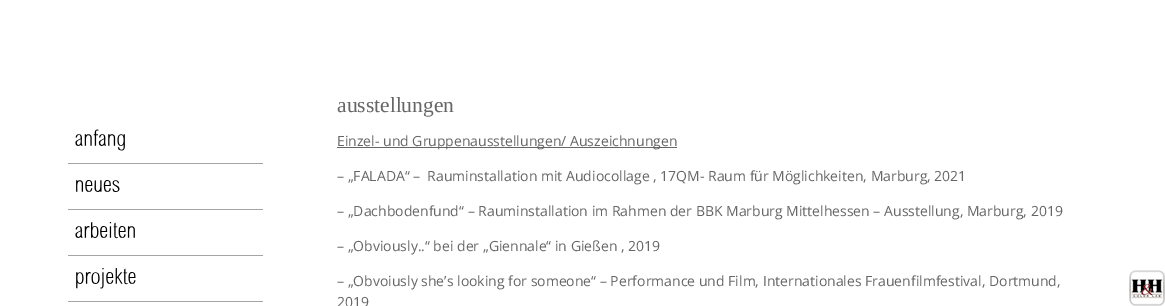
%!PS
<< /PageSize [1165 306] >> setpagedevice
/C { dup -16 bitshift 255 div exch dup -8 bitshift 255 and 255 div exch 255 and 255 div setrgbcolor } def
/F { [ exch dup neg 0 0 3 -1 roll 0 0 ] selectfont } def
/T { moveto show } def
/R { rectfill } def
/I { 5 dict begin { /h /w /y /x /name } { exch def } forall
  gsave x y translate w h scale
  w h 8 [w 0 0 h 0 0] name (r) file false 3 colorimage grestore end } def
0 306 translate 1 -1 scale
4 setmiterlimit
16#FFFFFF C
0 0 1165 306 R
16#A5A5A5 C
68 163 195 1 R
(1.rgb) 75 129 50 22 I
68 209 195 1 R
(2.rgb) 76 180 44 12 I
68 255 195 1 R
(3.rgb) 75 222 60 17 I
68 301 195 1 R
(4.rgb) 76 268 60 21 I
/LiberationSerif-Regular 21.5 F
16#666666 C
(ausstellungen) 337 112 T
337 147 340 1 R
/OpenSans-Regular 14 F
(Einzel- und Gruppenausstellungen/ Auszeichnungen) 337 146 T
(– „FALADA“ –  Rauminstallation mit Audiocollage , 17QM- Raum für Möglichkeiten, Marburg, 2021) 337 181 T
(– „Dachbodenfund“ – Rauminstallation im Rahmen der BBK Marburg Mittelhessen – Ausstellung, Marburg, 2019) 337 216 T
(– „Obviously..“ bei der „Giennale“ in Gießen , 2019) 337 251 T
(– „Obvoiusly she’s looking for someone“ – Performance und Film, Internationales Frauenfilmfestival, Dortmund,) 337 286 T
(2019) 337 307 T
(5.rgb) 1129 270 36 36 I
showpage
